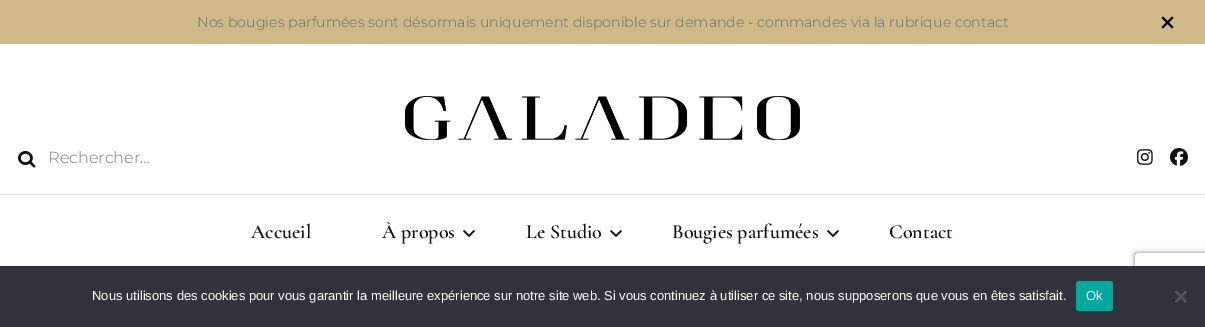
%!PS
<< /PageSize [1205 327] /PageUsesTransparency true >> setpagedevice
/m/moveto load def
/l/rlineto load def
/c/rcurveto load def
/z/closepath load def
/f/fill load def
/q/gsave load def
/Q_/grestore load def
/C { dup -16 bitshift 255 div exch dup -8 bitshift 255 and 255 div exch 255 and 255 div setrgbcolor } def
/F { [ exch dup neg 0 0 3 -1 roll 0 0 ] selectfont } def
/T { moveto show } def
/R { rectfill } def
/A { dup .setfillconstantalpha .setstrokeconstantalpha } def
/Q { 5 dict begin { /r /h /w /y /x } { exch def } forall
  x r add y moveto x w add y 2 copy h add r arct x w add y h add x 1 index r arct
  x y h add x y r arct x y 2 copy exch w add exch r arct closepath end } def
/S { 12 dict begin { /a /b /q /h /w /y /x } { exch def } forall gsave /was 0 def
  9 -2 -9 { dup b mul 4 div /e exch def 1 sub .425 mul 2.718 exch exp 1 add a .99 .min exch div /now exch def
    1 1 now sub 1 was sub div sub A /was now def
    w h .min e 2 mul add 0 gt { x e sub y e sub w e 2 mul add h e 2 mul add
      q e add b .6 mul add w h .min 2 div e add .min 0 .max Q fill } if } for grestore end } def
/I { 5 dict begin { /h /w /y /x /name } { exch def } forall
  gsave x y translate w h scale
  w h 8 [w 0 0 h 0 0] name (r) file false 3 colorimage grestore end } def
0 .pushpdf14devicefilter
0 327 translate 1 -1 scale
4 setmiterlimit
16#FFFFFF C
0 0 1205 327 R
16#D1B98A C
0 0 1205 44 R
/Montserrat-Light 14.22 F
16#666666 C
(Nos bougies parfumées sont désormais uniquement disponible sur demande - commandes via la rubrique contact) 197 27 T
16#000000 C
1163 16.5 m 10.5 10.5 l -1.5 1.5 l -10.5 -10.5 l z f
1161.5 27 m 10.5 -10.5 l 1.5 1.5 l -10.5 10.5 l z f
(1.rgb) 405 96 395 44 I
(2.rgb) 18 151 18 17 I
/Montserrat-Light 16 F
16#757575 C
(Rechercher…) 48 163 T
(3.rgb) 1137 149 16 16 I
(4.rgb) 1170 148 18 18 I
16#E5E5E5 C
0 194 1205 1 R
/CormorantGaramond-SemiBold 20 F
16#111111 C
(Accueil) 251 238 T
(À propos) 382 238 T
(5.rgb) 463 230 12 8 I
(Le Studio) 526 238 T
(5.rgb) 610 230 12 8 I
(Bougies parfumées) 672 238 T
(5.rgb) 827 230 12 8 I
(Contact) 889 238 T
q
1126 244 m 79 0 l 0 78 l -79 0 l z 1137 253 m 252 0 l 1 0 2 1 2 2 c 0 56 l 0 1 -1 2 -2 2 c -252 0 l -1 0 -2 -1 -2 -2 c 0 -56 l 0 -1 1 -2 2 -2 c z eoclip newpath
16#808080 C
1135 253 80 60 2 2.5 1 S
Q_
16#32323A C
0 266 1205 61 R
/LiberationSans-Regular 13 F
16#FFFFFF C
(Nous utilisons des cookies pour vous garantir la meilleure expérience sur notre site web. Si vous continuez à utiliser ce site, nous supposerons que vous en êtes satisfait.) 92 300 T
16#00A99D C
1076 281 37 30 3 Q f
16#FFFFFF C
(Ok) 1086 300 T
16#59595D C
1185.5 290.5 m 1.5 1.5 l -10.5 11 l -1.5 -1.5 l z f
1175 292 m 1.5 -1.5 l 10.5 11 l -1.5 1.5 l z f
.poppdf14devicefilter showpage
